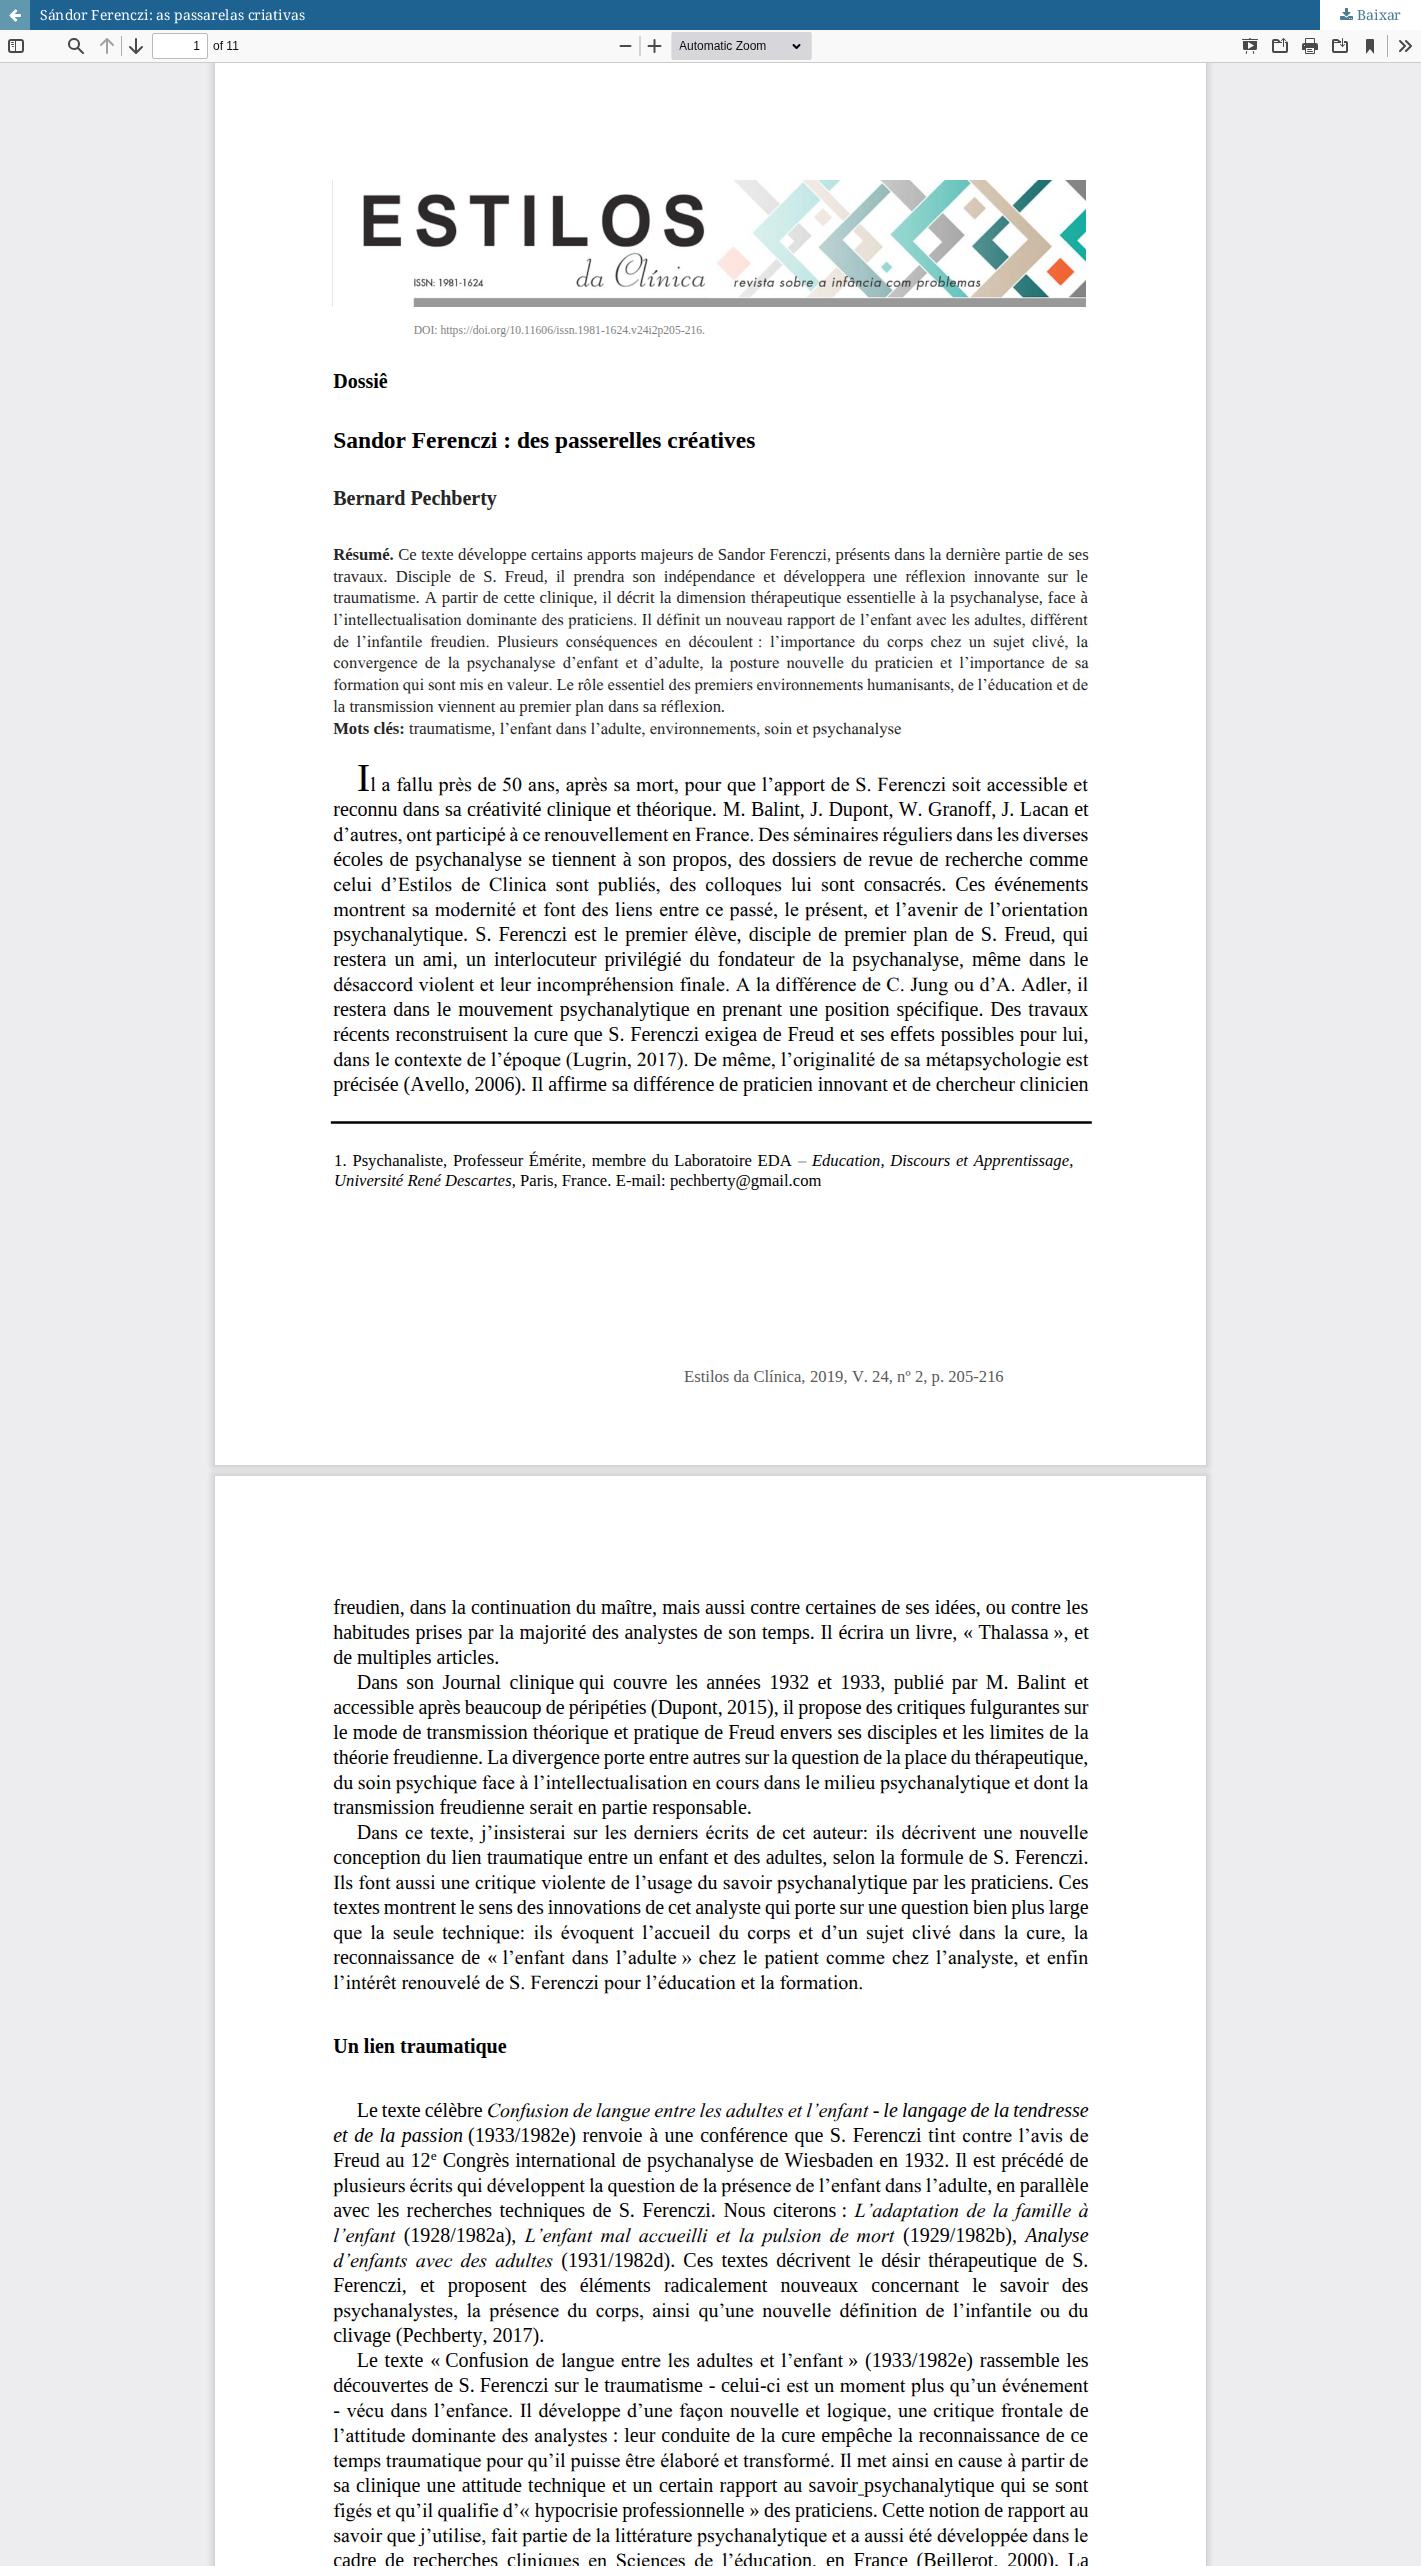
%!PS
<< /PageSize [1421 2566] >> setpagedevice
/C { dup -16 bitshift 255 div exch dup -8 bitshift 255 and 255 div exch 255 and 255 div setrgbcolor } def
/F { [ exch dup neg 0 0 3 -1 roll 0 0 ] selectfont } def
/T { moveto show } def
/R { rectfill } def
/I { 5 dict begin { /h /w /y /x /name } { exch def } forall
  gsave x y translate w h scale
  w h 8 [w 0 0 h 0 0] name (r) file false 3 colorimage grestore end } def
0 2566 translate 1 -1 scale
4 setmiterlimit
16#FFFFFF C
0 0 1421 2566 R
16#1E6292 C
30 0 1290 30 R
16#6298AE C
0 0 30 30 R
(1.rgb) 9 9 12 13 I
/NotoSerif-Regular 14 F
16#FFFFFF C
(Sándor Ferenczi: as passarelas criativas) 40 20 T
(2.rgb) 1340 8 13 12 I
16#4B7D92 C
(Baixar) 1357 20 T
(3.rgb) 0 30 1421 2536 I
showpage
